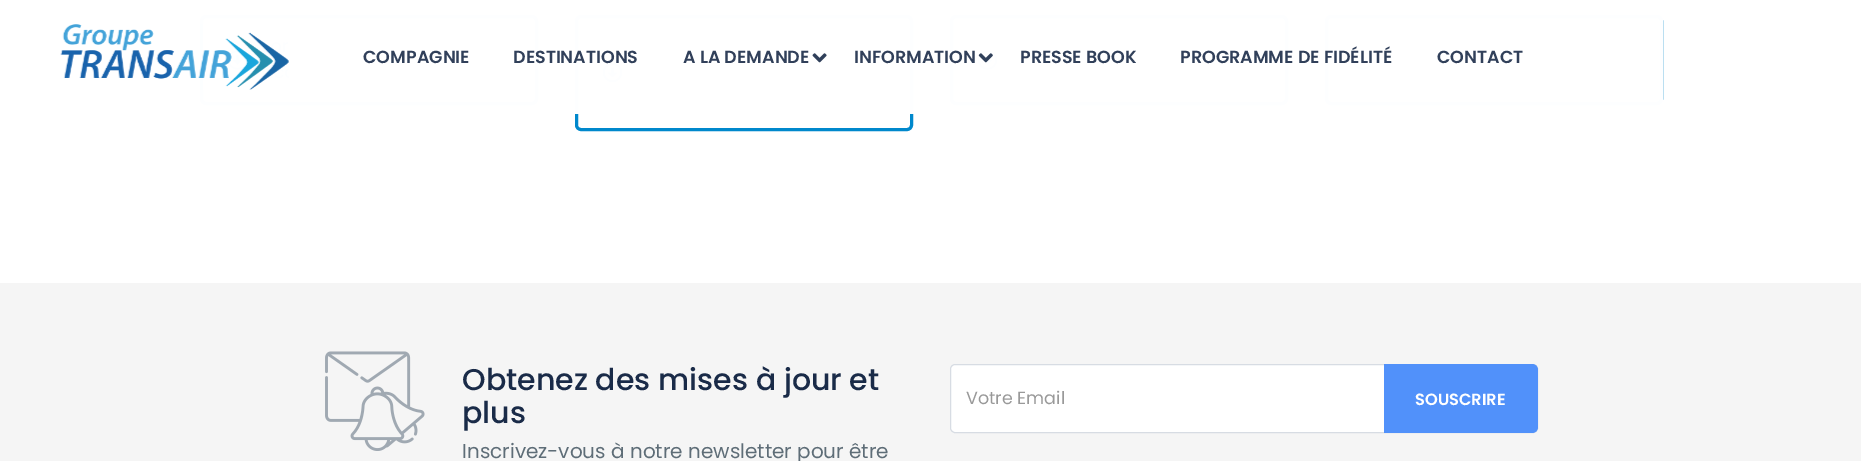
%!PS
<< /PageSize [1861 461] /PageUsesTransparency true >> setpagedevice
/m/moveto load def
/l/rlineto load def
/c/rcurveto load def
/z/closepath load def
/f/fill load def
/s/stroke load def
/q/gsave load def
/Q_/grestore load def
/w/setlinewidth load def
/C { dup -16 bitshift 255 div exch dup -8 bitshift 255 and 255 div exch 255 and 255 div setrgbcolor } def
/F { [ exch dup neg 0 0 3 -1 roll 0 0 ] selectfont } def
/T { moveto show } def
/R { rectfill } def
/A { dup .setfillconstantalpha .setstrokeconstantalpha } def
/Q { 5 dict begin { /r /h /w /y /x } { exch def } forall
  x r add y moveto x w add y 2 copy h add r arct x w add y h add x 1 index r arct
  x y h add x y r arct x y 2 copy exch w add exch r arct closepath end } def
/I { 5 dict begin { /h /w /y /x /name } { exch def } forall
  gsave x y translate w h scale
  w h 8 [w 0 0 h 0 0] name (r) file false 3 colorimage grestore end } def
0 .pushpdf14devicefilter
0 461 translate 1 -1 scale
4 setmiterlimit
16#FFFFFF C
0 0 1861 461 R
16#0088CC C
3 w
201.5 16.5 335 87 4.5 Q s
(1.rgb) 227 50 21 20 I
576.5 16.5 335 113 4.5 Q s
(2.rgb) 602 62 21 21 I
951.5 16.5 335 87 4.5 Q s
(1.rgb) 977 50 21 20 I
1326.5 16.5 335 87 4.5 Q s
(1.rgb) 1352 50 21 20 I
0.9 A
16#FFFFFF C
200 15 1463 99 R
200 15 1463 99 R
1 A
(3.rgb) 60 24 229 66 I
/Poppins-SemiBold 17.5 F
16#31405A C
(COMPAGNIE) 363 63 T
(DESTINATIONS) 513 63 T
(A LA DEMANDE) 683 63 T
(4.rgb) 812 53 15 10 I
(INFORMATION) 854 63 T
(5.rgb) 978 53 15 10 I
(PRESSE BOOK) 1020 63 T
(PROGRAMME DE FIDÉLITÉ) 1180 63 T
(CONTACT) 1437 63 T
16#F5F5F5 C
0 283 1861 178 R
(6.rgb) 325 351 100 100 I
/Poppins-Medium 30 F
16#1A2B48 C
(Obtenez des mises à jour et) 462 390 T
(plus) 462 423 T
/Poppins-Regular 20 F
16#5E6D77 C
(Inscrivez-vous à notre newsletter pour être) 462 458 T
16#FFFFFF C
950.5 364.5 587 68 4.5 Q q f Q_
16#D7DCE3 C
1 w
s
/Poppins-Regular 17.5 F
16#999999 C
(Votre Email) 966 404 T
16#5191FA C
1384 364 m 148 0 l 3.5 0 6 2.5 6 6 c 0 57 l 0 3.5 -2.5 6 -6 6 c -148 0 l z f
/Poppins-SemiBold 16.25 F
16#FFFFFF C
(SOUSCRIRE) 1415 405 T
.poppdf14devicefilter showpage
